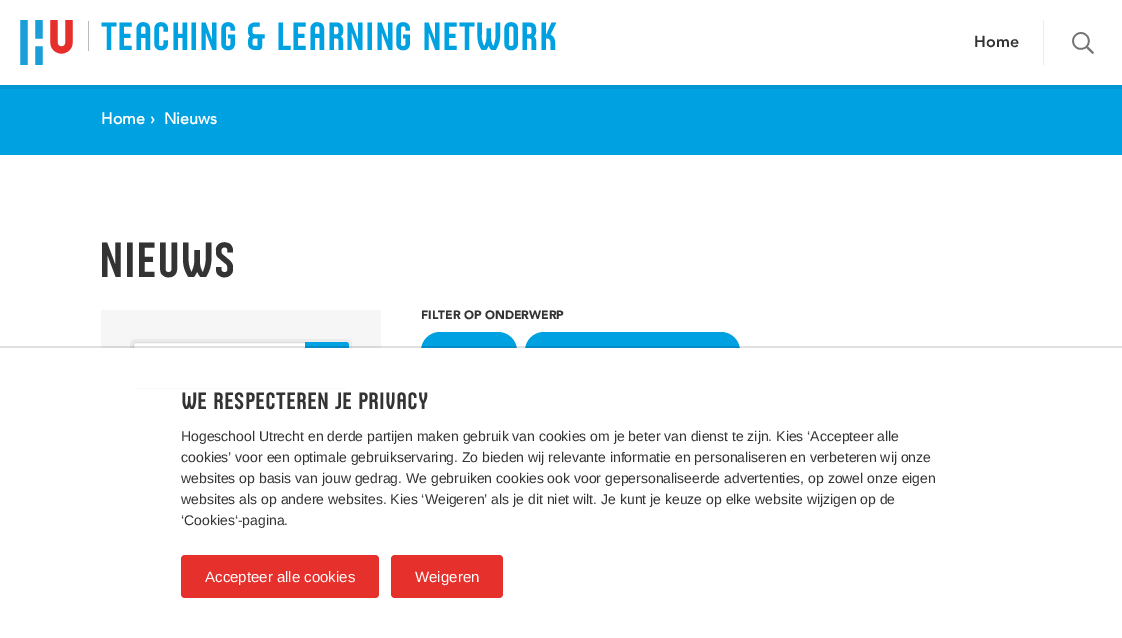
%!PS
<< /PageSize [1122 638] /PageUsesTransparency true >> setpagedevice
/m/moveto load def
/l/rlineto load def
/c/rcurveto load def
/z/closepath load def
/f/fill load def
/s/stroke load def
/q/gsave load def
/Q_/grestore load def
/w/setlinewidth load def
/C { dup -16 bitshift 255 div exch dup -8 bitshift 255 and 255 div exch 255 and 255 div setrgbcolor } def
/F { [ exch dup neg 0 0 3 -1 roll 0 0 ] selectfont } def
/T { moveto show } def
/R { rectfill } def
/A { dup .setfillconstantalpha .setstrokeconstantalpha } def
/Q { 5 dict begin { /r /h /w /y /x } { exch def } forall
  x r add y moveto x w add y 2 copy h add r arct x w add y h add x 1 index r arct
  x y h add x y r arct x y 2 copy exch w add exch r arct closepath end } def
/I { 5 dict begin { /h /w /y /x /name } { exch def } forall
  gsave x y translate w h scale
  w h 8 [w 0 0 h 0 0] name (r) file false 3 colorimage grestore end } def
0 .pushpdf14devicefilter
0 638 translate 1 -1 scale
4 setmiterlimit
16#FFFFFF C
0 0 1122 638 R
(1.rgb) 20 20 53 45 I
16#BBBBBB C
88 21 1 30 R
/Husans-Regular 40 F
16#00A1E1 C
(TEACHING & LEARNING NETWORK) 101 50 T
/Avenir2-Black 16 F
16#333333 C
(Home) 974 47 T
16#ECECEC C
1043 20 1 45 R
(2.rgb) 1072 32 22 22 I
16#0096D1 C
0 85 1122 4 R
16#00A1E1 C
0 89 1122 66 R
/Avenir-Bold 16 F
16#FFFFFF C
(Home) 101 124 T
(›) 150 124 T
(Nieuws) 164 124 T
/Husans-Regular 50 F
16#333333 C
(NIEUWS) 99 277 T
16#F6F6F6 C
101 310 280 38 R
16#EAEAEA C
3 w
131.5 340.5 219 46 4.5 Q s
16#FFFFFF C
133.5 342.5 215 42 2.5 Q q f Q_
16#DDDDDD C
1 w
s
16#00A1E1 C
305 342 m 41 0 l 1.5 0 3 1.5 3 3 c 0 37 l 0 1.5 -1.5 3 -3 3 c -41 0 l z f
/Avenir-Black 12 F
16#333333 C
(FILTER OP ONDERWERP) 421 319 T
16#00A1E1 C
421 332 96 38 19 Q f
525 332 215 38 19 Q f
0.12 A
16#000000 C
0 346 1122 2 R
1 A
16#FFFFFF C
130 348 610 40 R
/Husans-Regular 24 F
16#333333 C
(We respecteren je privacy) 181 409 T
/LiberationSans-Regular 14 F
(Hogeschool Utrecht en derde partijen maken gebruik van cookies om je beter van dienst te zijn. Kies ‘Accepteer alle) 181 441 T
(cookies’ voor een optimale gebruikservaring. Zo bieden wij relevante informatie en personaliseren en verbeteren wij onze) 181 462 T
(websites op basis van jouw gedrag. We gebruiken cookies ook voor gepersonaliseerde advertenties, op zowel onze eigen) 181 483 T
(websites als op andere websites. Kies ‘Weigeren’ als je dit niet wilt. Je kunt je keuze op elke website wijzigen op de) 181 504 T
(‘Cookies‘-pagina.) 181 525 T
16#E6302B C
181 555 198 43 4 Q f
/LiberationSans-Regular 15 F
16#FFFFFF C
(Accepteer alle cookies) 205 582 T
16#E6302B C
391 555 112 43 4 Q f
16#FFFFFF C
(Weigeren) 415 582 T
.poppdf14devicefilter showpage
